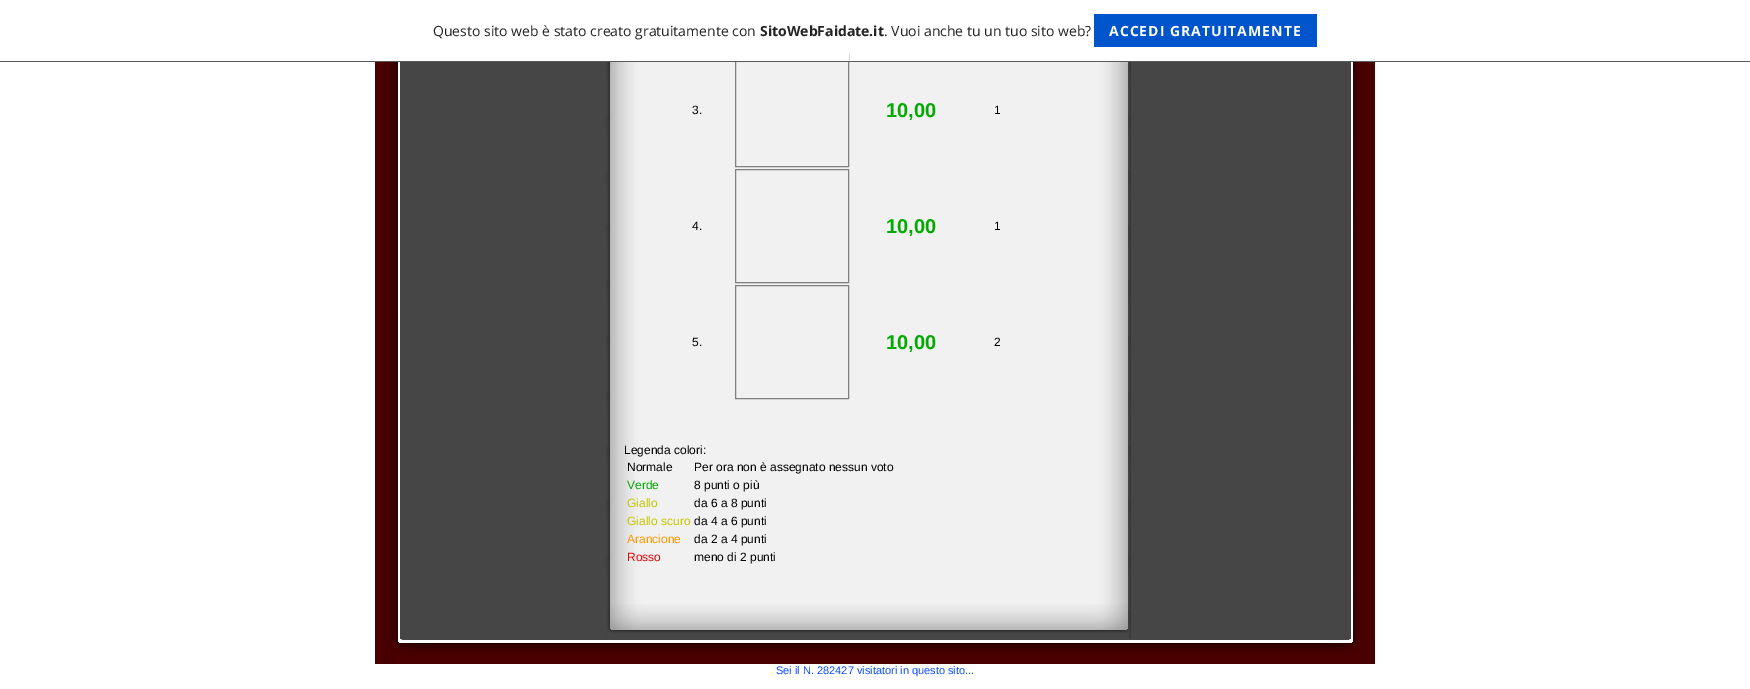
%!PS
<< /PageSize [1750 689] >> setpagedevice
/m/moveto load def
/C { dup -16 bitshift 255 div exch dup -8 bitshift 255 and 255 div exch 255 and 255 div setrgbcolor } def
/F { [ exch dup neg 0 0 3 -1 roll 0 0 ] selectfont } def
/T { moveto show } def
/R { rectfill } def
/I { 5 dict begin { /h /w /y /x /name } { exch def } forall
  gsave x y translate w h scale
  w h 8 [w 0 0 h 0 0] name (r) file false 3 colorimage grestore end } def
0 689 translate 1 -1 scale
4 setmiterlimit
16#FFFFFF C
0 0 1750 689 R
16#464646 C
401 62 949 577 R
(2.rgb) 606 62 525 577 I
16#808080 C
735.5 53.5 113 113 rectstroke
16#FFFFFF C
735 53 114 8 R
16#5A5A5A C
0 61 1750 1 R
/OpenSans-Regular 14 F
16#232323 C
(Questo sito web è stato creato gratuitamente con) 433 36 T
/OpenSans-Bold 14 F
(SitoWebFaidate.it) 760 36 T
/OpenSans-Regular 14 F
(. Vuoi anche tu un tuo sito web?) 884 36 T
16#0055CC C
1094 14 223 33 R
/OpenSans-Bold 14 F
16#FFFFFF C
1109 36 m 1 0 (ACCEDI GRATUITAMENTE) ashow
(1.rgb) 375 62 23 577 I
16#474647 C
400 62 1 577 R
/LiberationSans-Regular 12 F
16#000000 C
(3.) 692 114 T
/LiberationSans-Bold 20 F
16#00AA00 C
(10,00) 886 117 T
/LiberationSans-Regular 12 F
16#000000 C
(1) 994 114 T
(4.) 692 230 T
16#808080 C
735.5 169.5 113 113 rectstroke
/LiberationSans-Bold 20 F
16#00AA00 C
(10,00) 886 233 T
/LiberationSans-Regular 12 F
16#000000 C
(1) 994 230 T
(5.) 692 346 T
16#808080 C
735.5 285.5 113 113 rectstroke
/LiberationSans-Bold 20 F
16#00AA00 C
(10,00) 886 349 T
/LiberationSans-Regular 12 F
16#000000 C
(2) 994 346 T
(Legenda colori:) 624 454 T
(Normale) 627 471 T
(Per ora non è assegnato nessun voto) 694 471 T
16#00AA00 C
(Verde) 627 489 T
16#000000 C
(8 punti o più) 694 489 T
16#C6C600 C
(Giallo) 627 507 T
16#000000 C
(da 6 a 8 punti) 694 507 T
16#C6C600 C
(Giallo scuro) 627 525 T
16#000000 C
(da 4 a 6 punti) 694 525 T
16#FF9800 C
(Arancione) 627 543 T
16#000000 C
(da 2 a 4 punti) 694 543 T
16#E10808 C
(Rosso) 627 561 T
16#000000 C
(meno di 2 punti) 694 561 T
(3.rgb) 607 604 521 35 I
16#474647 C
1350 62 1 577 R
(4.rgb) 1353 62 22 577 I
(5.rgb) 375 639 1000 25 I
(6.rgb) 388 639 976 25 I
/LiberationSans-Regular 11 F
16#0C4FF8 C
(Sei il N. 282427 visitatori in questo sito...) 776 674 T
showpage
